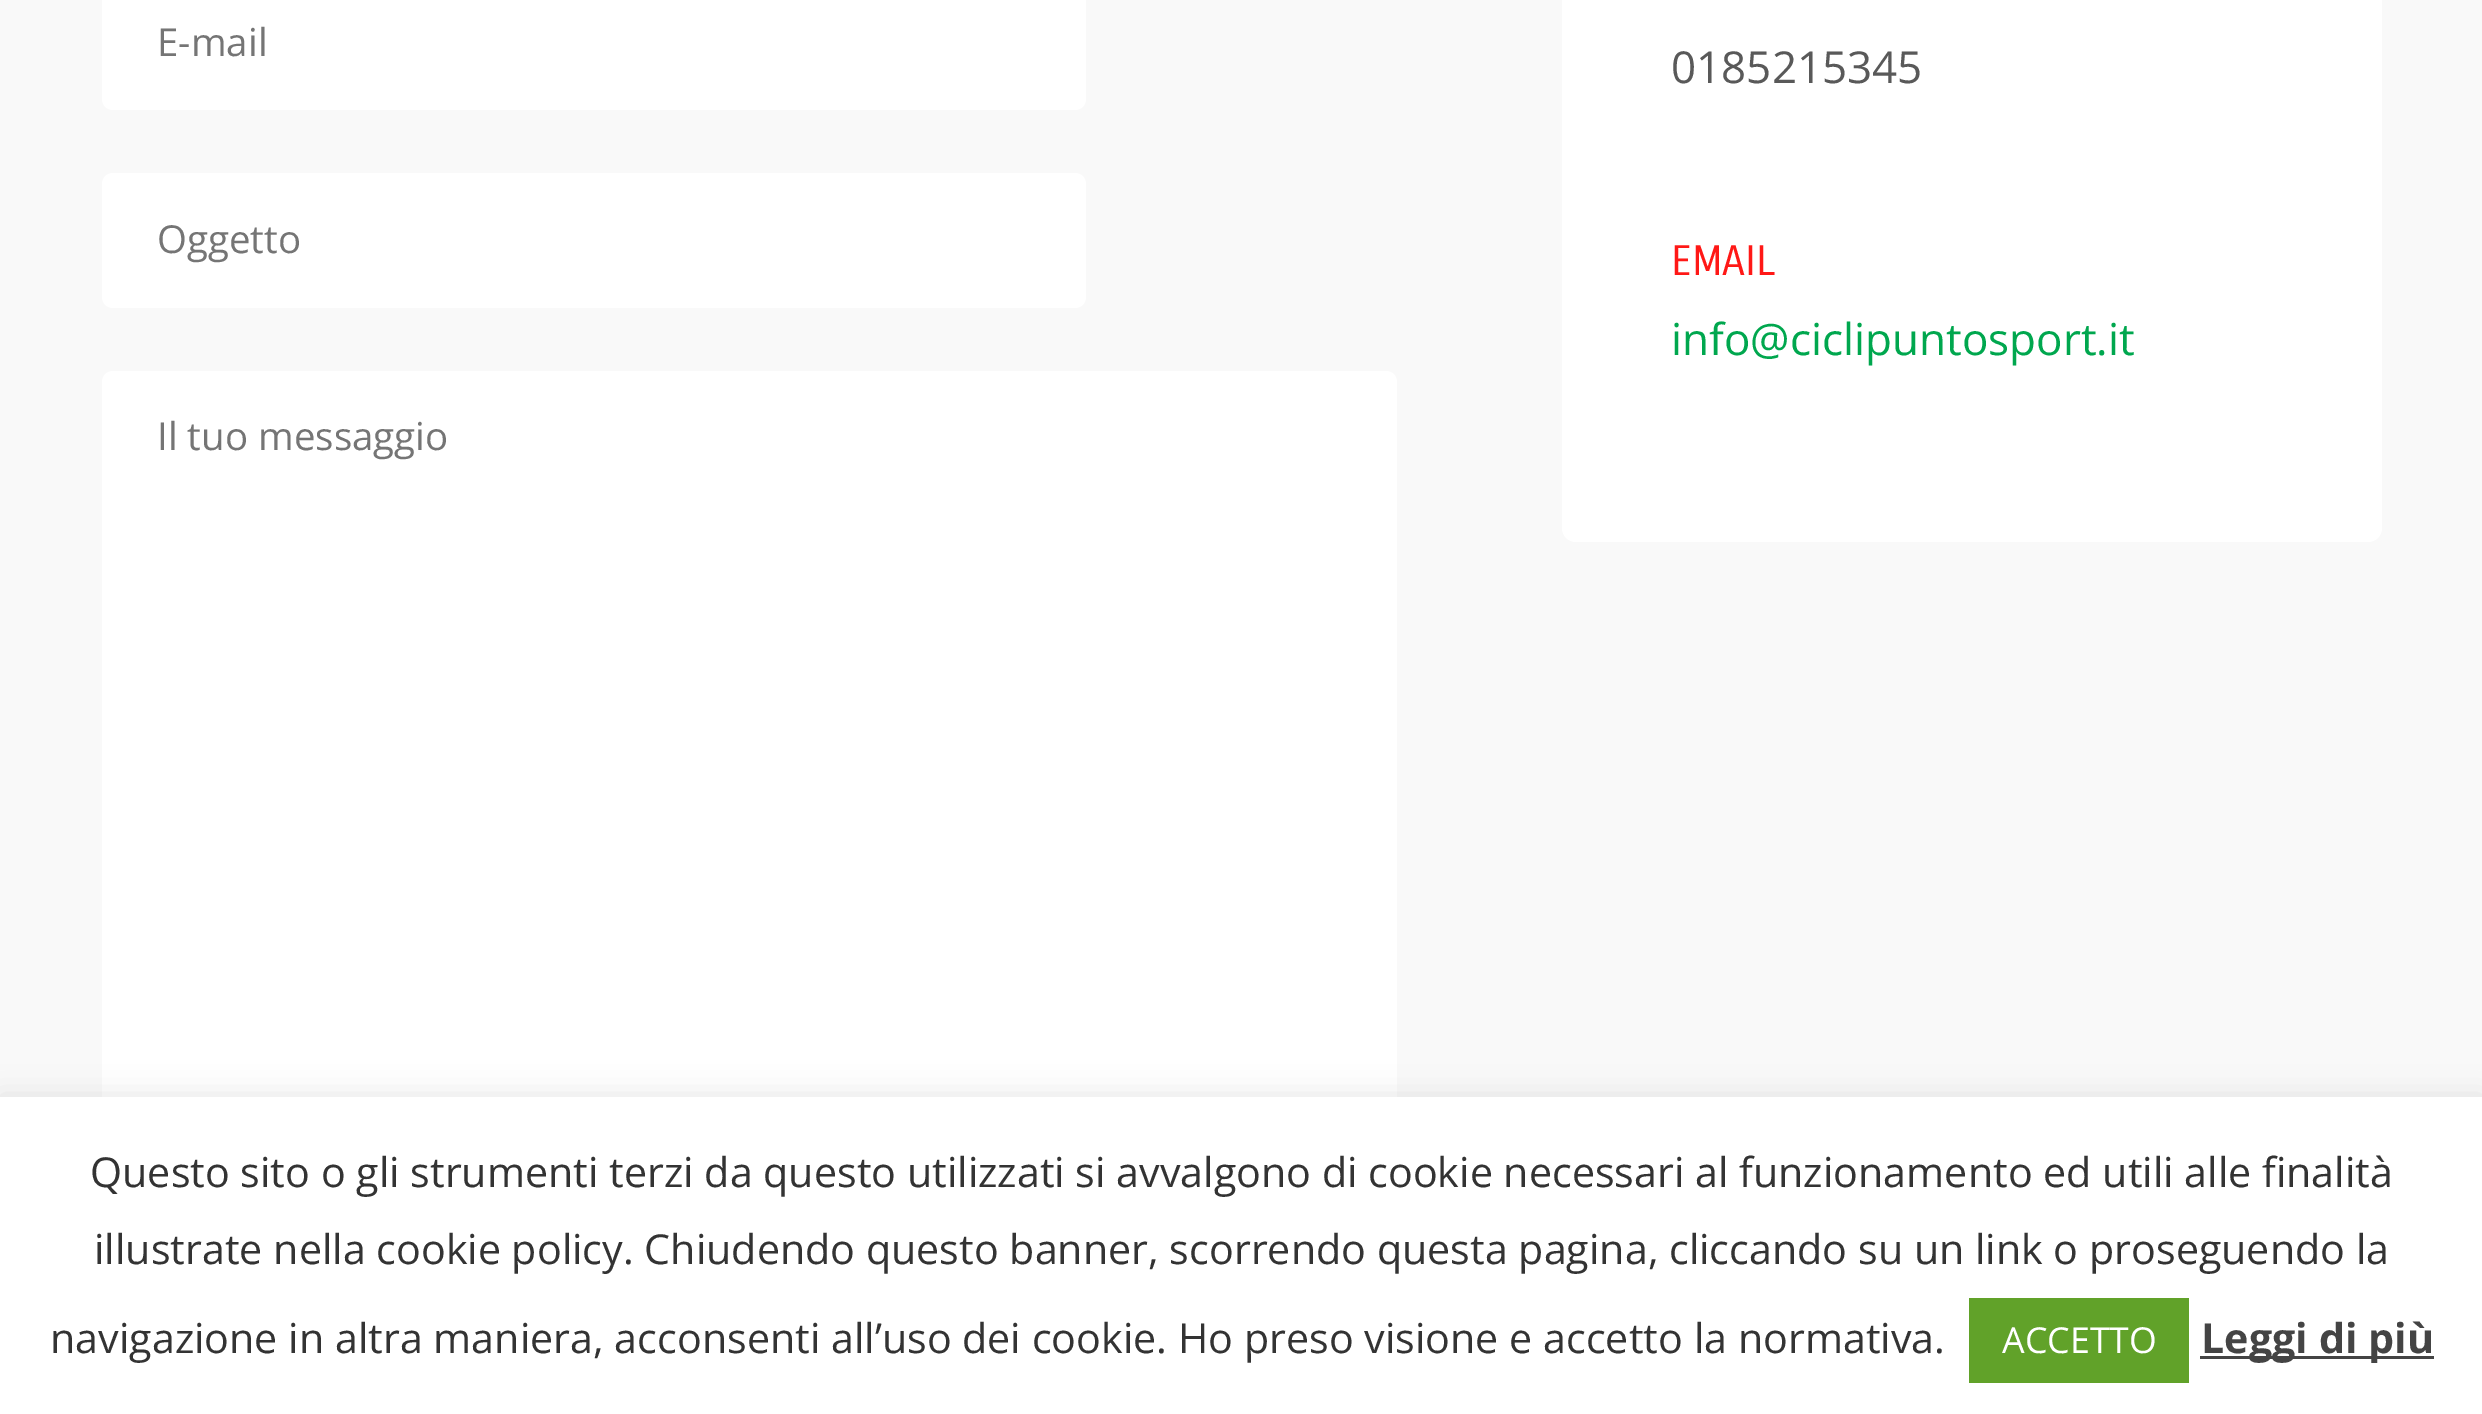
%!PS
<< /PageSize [2482 1414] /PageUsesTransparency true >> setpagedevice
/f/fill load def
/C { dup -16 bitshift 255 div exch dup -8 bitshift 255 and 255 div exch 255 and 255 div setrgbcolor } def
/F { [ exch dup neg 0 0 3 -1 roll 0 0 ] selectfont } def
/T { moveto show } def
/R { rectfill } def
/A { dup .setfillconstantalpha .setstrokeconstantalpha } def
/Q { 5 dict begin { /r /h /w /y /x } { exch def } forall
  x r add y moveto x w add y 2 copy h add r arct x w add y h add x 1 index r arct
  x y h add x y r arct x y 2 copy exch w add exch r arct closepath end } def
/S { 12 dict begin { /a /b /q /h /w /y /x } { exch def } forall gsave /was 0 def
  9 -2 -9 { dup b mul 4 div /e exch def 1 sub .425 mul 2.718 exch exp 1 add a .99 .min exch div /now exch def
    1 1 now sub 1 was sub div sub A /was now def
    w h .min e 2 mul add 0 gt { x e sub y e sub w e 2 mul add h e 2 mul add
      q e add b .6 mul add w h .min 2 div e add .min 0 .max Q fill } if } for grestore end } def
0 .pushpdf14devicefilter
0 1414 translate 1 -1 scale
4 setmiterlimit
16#F9F9F9 C
0 0 2482 1414 R
16#FFFFFF C
102 -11 984 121 11 Q f
/OpenSans-Regular 38.5 F
16#757575 C
(E-mail) 157 56 T
16#FFFFFF C
102 173 984 135 11 Q f
16#757575 C
(Oggetto) 157 253 T
16#FFFFFF C
102 371 1295 740 11 Q f
16#757575 C
(Il tuo messaggio) 157 450 T
16#FFFFFF C
1562 -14 820 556 14 Q f
/OpenSans-Regular 44 F
16#595959 C
(0185215345) 1671 83 T
/CarroisGothic-Regular 41.25 F
16#FF1816 C
(EMAIL) 1671 275 T
/OpenSans-Regular 44 F
16#00A74E C
(info@ciclipuntosport.it) 1671 355 T
16#ACABAB C
0 1095 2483 319 0 14 .3 S
16#FFFFFF C
0 1097 2482 317 R
/OpenSans-Regular 41.25 F
16#333333 C
(Questo sito o gli strumenti terzi da questo utilizzati si avvalgono di cookie necessari al funzionamento ed utili alle finalità) 90 1187 T
(illustrate nella cookie policy. Chiudendo questo banner, scorrendo questa pagina, cliccando su un link o proseguendo la) 94 1264 T
(navigazione in altra maniera, acconsenti all’uso dei cookie. Ho preso visione e accetto la normativa.) 50 1353 T
16#61A229 C
1969 1298 220 85 R
/OpenSans-Regular 35.75 F
16#FFFFFF C
(ACCETTO) 2002 1353 T
16#444444 C
2200 1356 234 3 R
/OpenSans-Bold 41.25 F
(Leggi di più) 2201 1353 T
.poppdf14devicefilter showpage
